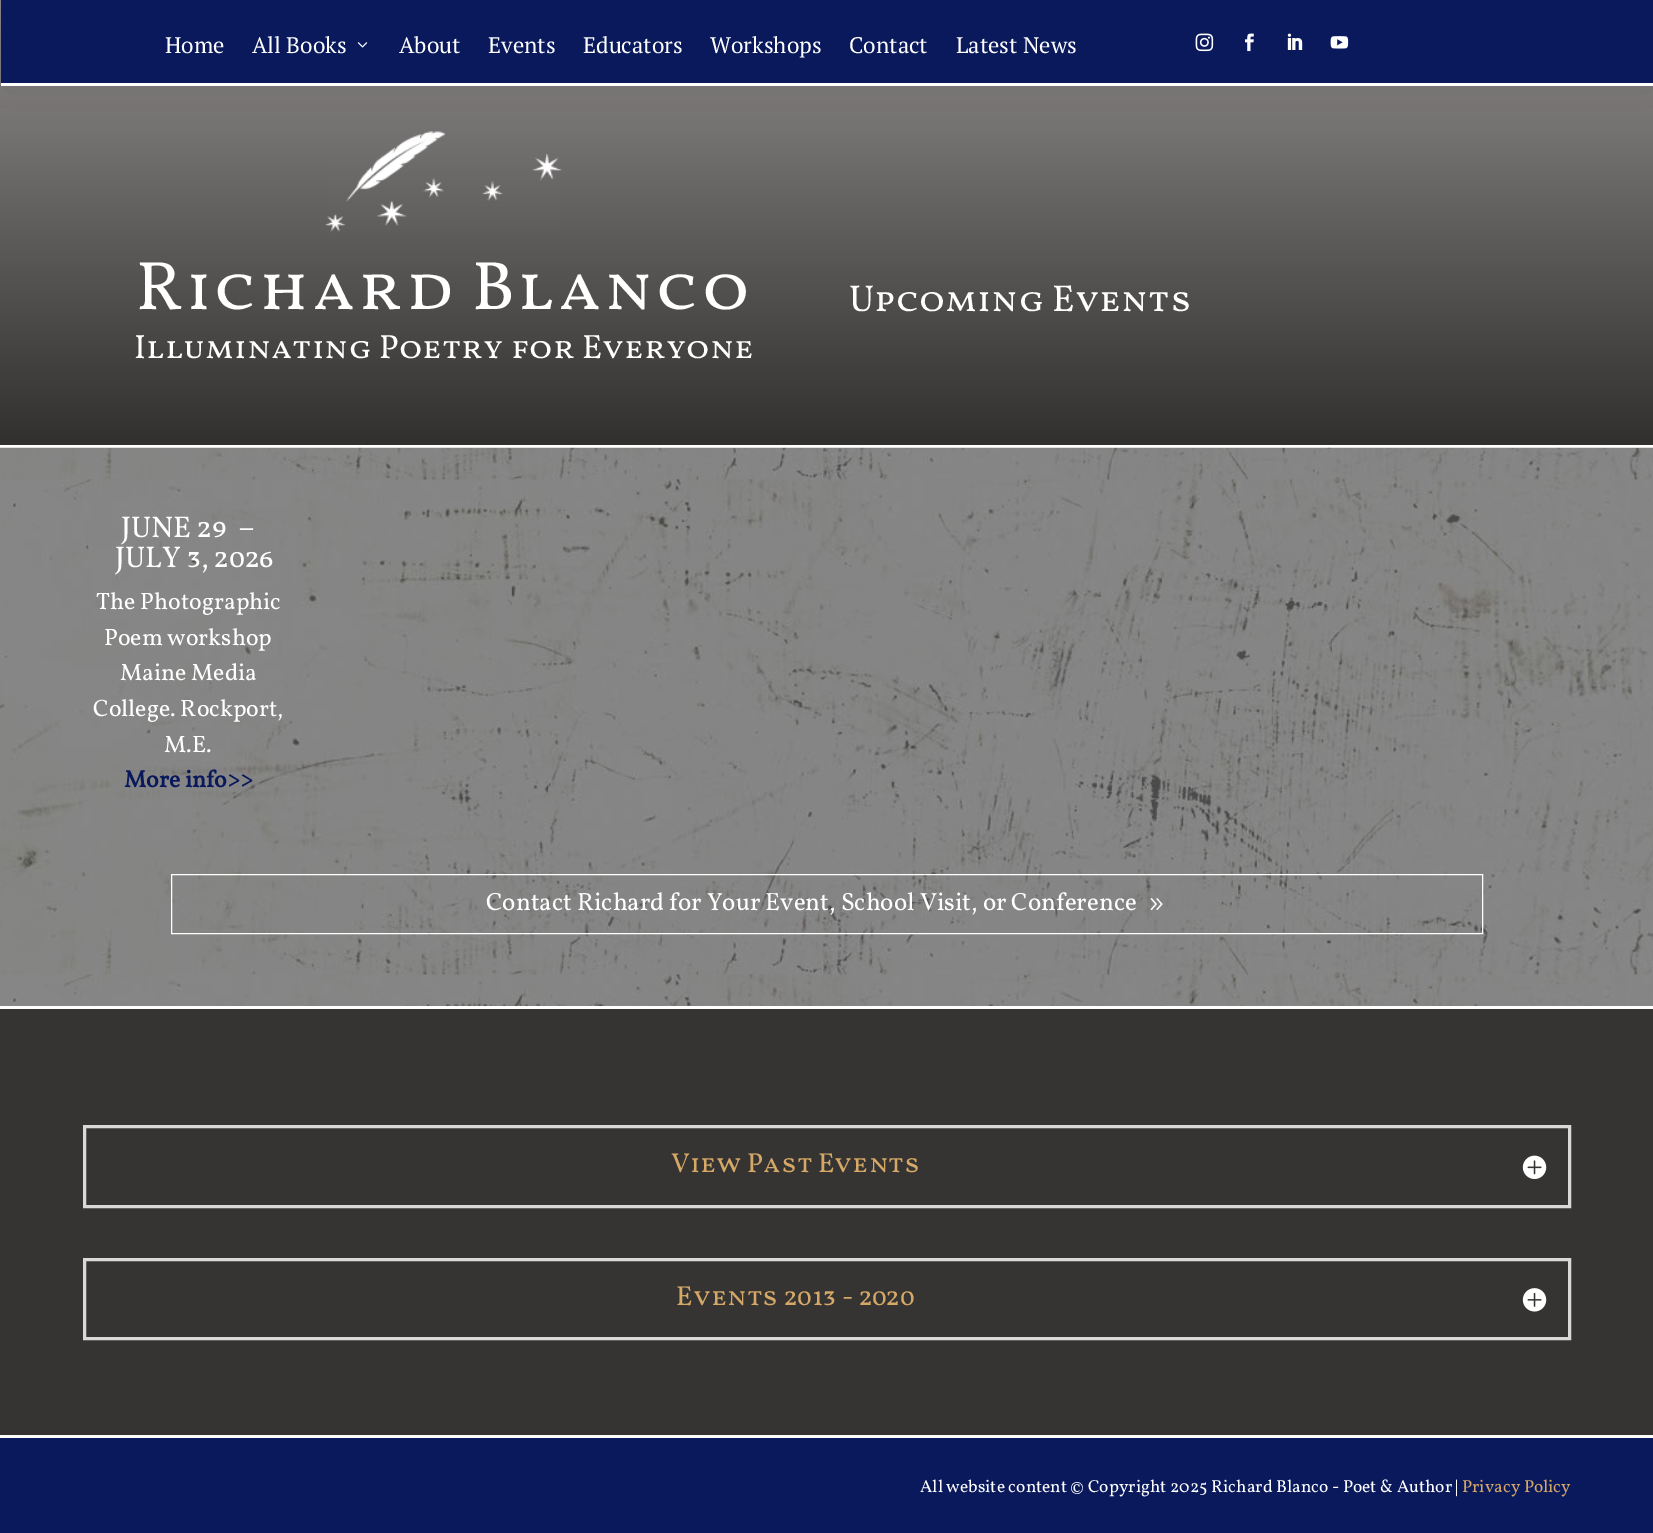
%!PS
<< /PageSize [1653 1533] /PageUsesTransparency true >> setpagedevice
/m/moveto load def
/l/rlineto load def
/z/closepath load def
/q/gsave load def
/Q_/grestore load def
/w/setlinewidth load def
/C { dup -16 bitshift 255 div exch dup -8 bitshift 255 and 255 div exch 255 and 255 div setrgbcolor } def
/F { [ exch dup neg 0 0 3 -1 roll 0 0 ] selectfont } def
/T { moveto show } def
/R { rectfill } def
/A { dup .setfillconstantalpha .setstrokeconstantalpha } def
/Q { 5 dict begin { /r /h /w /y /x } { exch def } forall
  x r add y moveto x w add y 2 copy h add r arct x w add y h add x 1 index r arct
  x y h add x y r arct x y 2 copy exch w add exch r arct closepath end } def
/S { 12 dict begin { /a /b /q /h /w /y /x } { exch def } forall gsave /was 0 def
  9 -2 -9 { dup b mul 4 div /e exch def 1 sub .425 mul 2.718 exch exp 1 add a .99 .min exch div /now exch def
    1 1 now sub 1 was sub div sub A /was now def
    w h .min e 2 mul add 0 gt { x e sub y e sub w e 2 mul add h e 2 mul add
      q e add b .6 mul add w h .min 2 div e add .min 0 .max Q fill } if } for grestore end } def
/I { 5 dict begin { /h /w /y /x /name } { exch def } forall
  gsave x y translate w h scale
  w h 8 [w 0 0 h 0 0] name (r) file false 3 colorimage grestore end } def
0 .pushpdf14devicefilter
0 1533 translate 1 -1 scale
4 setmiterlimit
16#09195C C
0 0 1653 1533 R
q 0 0 m 1653 0 l 0 445 l -1653 0 l z clip newpath
<< /ShadingType 2 /ColorSpace /DeviceRGB /Coords [827 -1.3 827 445] /Extend [true true] /Function << /FunctionType 2 /Domain [0 1] /C0 [.569 .553 .557] /C1 [.192 .188 .18] /N 1 >> >> shfill Q_
(6.rgb) 325 131 237 102 I
16#000000 C
1 3 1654 85 0 31 .12 S
16#09195C C
1 0 1652 83 R
16#FFFFFF C
1 83 1652 3 R
/PTSerif-Regular 22.5 F
(Home) 165 53 T
(All Books) 252 53 T
(1.rgb) 357 42 11 6 I
(About) 399 53 T
(Events) 488 53 T
(Educators) 583 53 T
(Workshops) 710 53 T
(Contact) 849 53 T
(Latest News) 956 53 T
(2.rgb) 1195 33 19 19 I
(3.rgb) 1245 33 9 19 I
(4.rgb) 1287 33 16 17 I
(5.rgb) 1330 36 19 13 I
0 445 1653 3 R
/VollkornSC-Regular 68.75 F
136 309 m 2.5 0 (Richard Blanco) ashow
/VollkornSC-Regular 33.75 F
(Illuminating Poetry for Everyone) 134 358 T
/VollkornSC-Regular 37.5 F
(Upcoming Events) 849 311 T
(7.rgb) 0 447 1653 559 I
0 1006 1653 3 R
/VollkornSC-Regular 30 F
(JUNE 29) 121 537 T
(–) 238 537 T
(JULY 3, 2026) 115 567 T
/Vollkorn-Regular 23.75 F
(The Photographic) 96 609 T
(Poem workshop) 104 645 T
(Maine Media) 120 680 T
(College. Rockport,) 93 716 T
(M.E.) 164 752 T
/Vollkorn-Bold 23.75 F
16#09195C C
(More info>>) 124 787 T
16#FFFFFF C
171.5 874.5 1311 59 rectstroke
/Vollkorn-Regular 25 F
(Contact Richard for Your Event, School Visit, or Conference) 486 910 T
(8.rgb) 1150 898 13 12 I
16#353432 C
0 1009 1653 426 R
16#D9D9D9 C
3 w
84.5 1126.5 1485 80 rectstroke
/VollkornSC-Regular 27.5 F
16#D5A867 C
(View Past Events) 671 1172 T
(9.rgb) 1522 1155 25 25 I
16#D9D9D9 C
84.5 1259.5 1485 79 rectstroke
16#D5A867 C
(Events 2013 - 2020) 676 1305 T
(10.rgb) 1522 1288 25 24 I
16#FFFFFF C
0 1435 1653 3 R
/Vollkorn-Regular 17.5 F
(All website content © Copyright 2025 Richard Blanco - Poet & Author |) 920 1492 T
16#D5A867 C
(Privacy Policy) 1462 1492 T
.poppdf14devicefilter showpage
